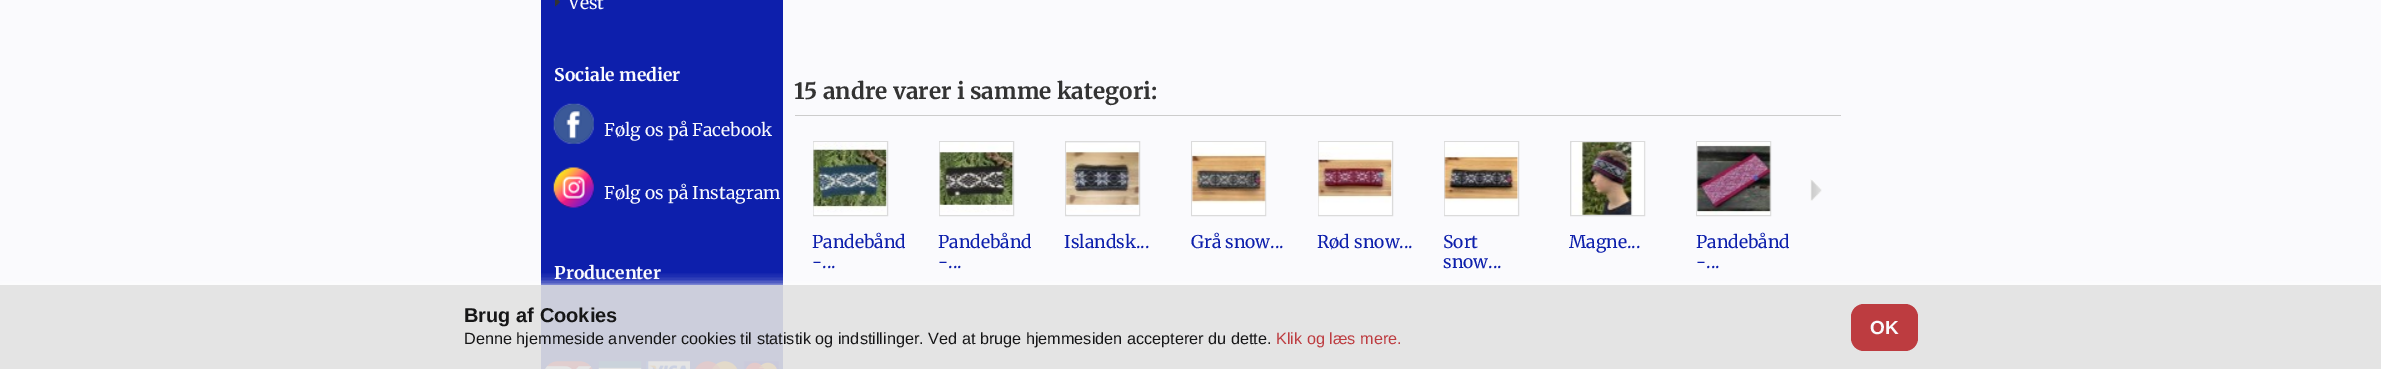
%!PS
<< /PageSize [2381 369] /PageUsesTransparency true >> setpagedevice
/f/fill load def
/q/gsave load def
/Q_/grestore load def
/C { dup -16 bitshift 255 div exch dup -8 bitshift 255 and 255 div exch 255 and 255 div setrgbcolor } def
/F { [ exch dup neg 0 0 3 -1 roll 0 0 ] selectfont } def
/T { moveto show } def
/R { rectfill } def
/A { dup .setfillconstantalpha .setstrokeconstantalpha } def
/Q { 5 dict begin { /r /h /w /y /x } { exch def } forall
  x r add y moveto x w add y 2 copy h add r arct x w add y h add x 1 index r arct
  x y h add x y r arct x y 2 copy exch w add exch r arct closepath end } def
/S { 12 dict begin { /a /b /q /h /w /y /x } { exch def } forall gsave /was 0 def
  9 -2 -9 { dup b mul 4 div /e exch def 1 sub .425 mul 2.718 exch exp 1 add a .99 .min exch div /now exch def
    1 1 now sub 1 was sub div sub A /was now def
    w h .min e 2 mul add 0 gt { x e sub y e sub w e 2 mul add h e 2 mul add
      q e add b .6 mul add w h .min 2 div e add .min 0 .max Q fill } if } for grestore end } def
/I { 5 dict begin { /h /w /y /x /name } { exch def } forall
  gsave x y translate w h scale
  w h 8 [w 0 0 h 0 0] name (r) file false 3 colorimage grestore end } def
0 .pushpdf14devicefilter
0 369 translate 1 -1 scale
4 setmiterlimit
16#FAFAFD C
0 0 2381 369 R
16#E4E4E4 C
0 285 2381 84 R
16#0D1FAC C
541 0 242 285 R
16#CCCEDC C
541 285 242 84 R
(1.rgb) 555 0 5 7 I
/Merriweather-Regular 17.5 F
16#FAFAFD C
(Vest) 568 9 T
/Merriweather-Bold 17.5 F
(Sociale medier) 554 81 T
(2.rgb) 553 103 41 41 I
/Merriweather-Regular 17.5 F
(Følg os på Facebook) 604 136 T
(3.rgb) 553 167 41 41 I
(Følg os på Instagram) 604 199 T
/Merriweather-Bold 17.5 F
(Producenter) 554 279 T
(4.rgb) 545 361 48 8 I
(5.rgb) 598 361 44 8 I
(6.rgb) 646 361 44 8 I
(7.rgb) 695 361 43 8 I
(8.rgb) 743 361 36 8 I
16#CCCCCC C
795 115 1046 1 R
/Merriweather-Bold 22.5 F
16#333333 C
(15 andre varer i samme kategori:) 794 99 T
(9.rgb) 1810 179 12 22 I
16#DBDBDB C
813.5 141.5 74 74 rectstroke
(10.rgb) 813 142 74 73 I
/Merriweather-Regular 17.5 F
16#0D1FAC C
(Pandebånd) 812 248 T
(-...) 812 268 T
16#DBDBDB C
939.5 141.5 74 74 rectstroke
(11.rgb) 939 142 75 73 I
16#0D1FAC C
(Pandebånd) 938 248 T
(-...) 938 268 T
16#DBDBDB C
1065.5 141.5 74 74 rectstroke
(12.rgb) 1066 143 74 71 I
16#0D1FAC C
(Islandsk...) 1064 248 T
16#DBDBDB C
1191.5 141.5 74 74 rectstroke
(13.rgb) 1192 142 74 73 I
16#0D1FAC C
(Grå snow...) 1191 248 T
16#DBDBDB C
1318.5 141.5 74 74 rectstroke
(14.rgb) 1318 142 74 73 I
16#0D1FAC C
(Rød snow...) 1317 248 T
16#DBDBDB C
1444.5 141.5 74 74 rectstroke
(15.rgb) 1444 142 75 73 I
16#0D1FAC C
(Sort) 1443 248 T
(snow...) 1443 268 T
16#DBDBDB C
1570.5 141.5 74 74 rectstroke
(16.rgb) 1572 142 73 73 I
16#0D1FAC C
(Magne...) 1569 248 T
16#DBDBDB C
1696.5 141.5 74 74 rectstroke
(17.rgb) 1697 142 74 73 I
16#0D1FAC C
(Pandebånd) 1696 248 T
(-...) 1696 268 T
q
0 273 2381 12 rectclip
16#FFFFFF C
0 285 2381 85 0 6 .9 S
Q_
/LiberationSans-Bold 20 F
16#161617 C
(Brug af Cookies) 464 322 T
16#BD3C40 C
1851 304 67 47 13 Q f
/LiberationSans-Bold 19 F
16#FAFAFD C
(OK) 1870 334 T
/LiberationSans-Regular 16.25 F
16#161617 C
(Denne hjemmeside anvender cookies til statistik og indstillinger. Ved at bruge hjemmesiden accepterer du dette.) 464 344 T
16#BD3C40 C
(Klik og læs mere.) 1276 344 T
.poppdf14devicefilter showpage
